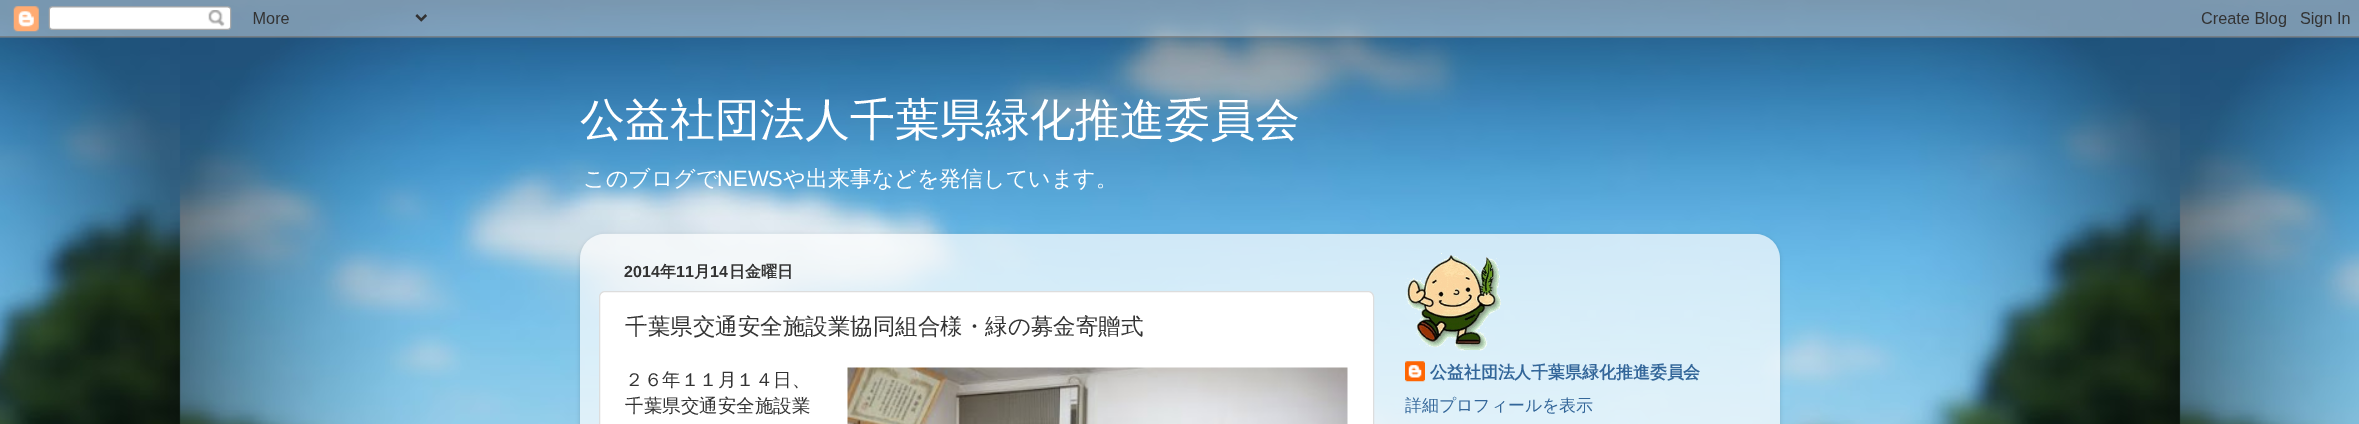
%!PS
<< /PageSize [2359 424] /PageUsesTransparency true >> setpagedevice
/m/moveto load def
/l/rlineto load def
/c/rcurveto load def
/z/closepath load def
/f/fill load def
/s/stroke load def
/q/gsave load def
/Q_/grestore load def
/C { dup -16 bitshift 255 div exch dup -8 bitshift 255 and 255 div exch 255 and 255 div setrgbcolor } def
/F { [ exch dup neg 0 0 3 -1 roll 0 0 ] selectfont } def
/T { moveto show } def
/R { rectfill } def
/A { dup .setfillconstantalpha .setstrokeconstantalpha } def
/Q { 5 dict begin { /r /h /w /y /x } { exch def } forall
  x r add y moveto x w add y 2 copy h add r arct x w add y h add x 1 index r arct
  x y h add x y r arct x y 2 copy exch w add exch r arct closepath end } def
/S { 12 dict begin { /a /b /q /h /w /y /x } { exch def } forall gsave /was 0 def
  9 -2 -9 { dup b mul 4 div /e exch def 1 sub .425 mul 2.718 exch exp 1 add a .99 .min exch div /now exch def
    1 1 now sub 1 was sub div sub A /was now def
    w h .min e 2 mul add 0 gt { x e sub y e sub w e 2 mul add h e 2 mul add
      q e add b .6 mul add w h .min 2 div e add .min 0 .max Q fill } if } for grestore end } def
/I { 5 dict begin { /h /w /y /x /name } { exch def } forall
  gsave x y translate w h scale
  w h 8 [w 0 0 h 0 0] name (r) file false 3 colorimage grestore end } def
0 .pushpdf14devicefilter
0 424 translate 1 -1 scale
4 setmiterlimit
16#FFFFFF C
0 0 2359 424 R
(1.rgb) 0 0 2359 424 I
(2.rgb) 0 0 2359 38 I
/WenQuanYiZenHei-Medium 45 F
(公益社団法人千葉県緑化推進委員会) 580 135 T
/WenQuanYiZenHei-Medium 22 F
(このブログで) 583 186 T
/LiberationSans-Regular 22 F
(NEWS) 717 186 T
/WenQuanYiZenHei-Medium 22 F
(や出来事などを発信しています。) 783 186 T
q
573 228 m 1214 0 l 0 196 l -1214 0 l z 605 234 m 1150 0 l 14 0 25 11 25 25 c 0 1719 l -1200 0 l 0 -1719 l 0 -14 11 -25 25 -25 c z eoclip newpath
16#000000 C
580 235 1200 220 25 2 .15 S
Q_
(3.rgb) 580 233 1200 191 I
/LiberationSans-Bold 16 F
16#333333 C
(2014) 624 277 T
/WenQuanYiZenHei-Bold 16 F
(年) 660 277 T
/LiberationSans-Bold 16 F
(11) 676 277 T
/WenQuanYiZenHei-Bold 16 F
(月) 694 277 T
/LiberationSans-Bold 16 F
(14) 710 277 T
/WenQuanYiZenHei-Bold 16 F
(日金曜日) 729 277 T
16#FFFFFF C
599.5 291.5 774 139 5.5 Q q f Q_
16#DDDDDD C
s
/WenQuanYiZenHei-Medium 22.5 F
16#333333 C
(千葉県交通安全施設業協同組合様・緑の募金寄贈式) 625 334 T
/WenQuanYiZenHei-Medium 18.5 F
(２６年１１月１４日、) 625 386 T
(4.rgb) 847 367 501 57 I
(千葉県交通安全施設業) 625 412 T
(5.rgb) 1405 253 96 98 I
(6.rgb) 1405 361 20 21 I
/WenQuanYiZenHei-Bold 16.9 F
16#336699 C
(公益社団法人千葉県緑化推進委員会) 1430 378 T
/WenQuanYiZenHei-Medium 16.9 F
(詳細プロフィールを表示) 1405 411 T
.poppdf14devicefilter showpage
